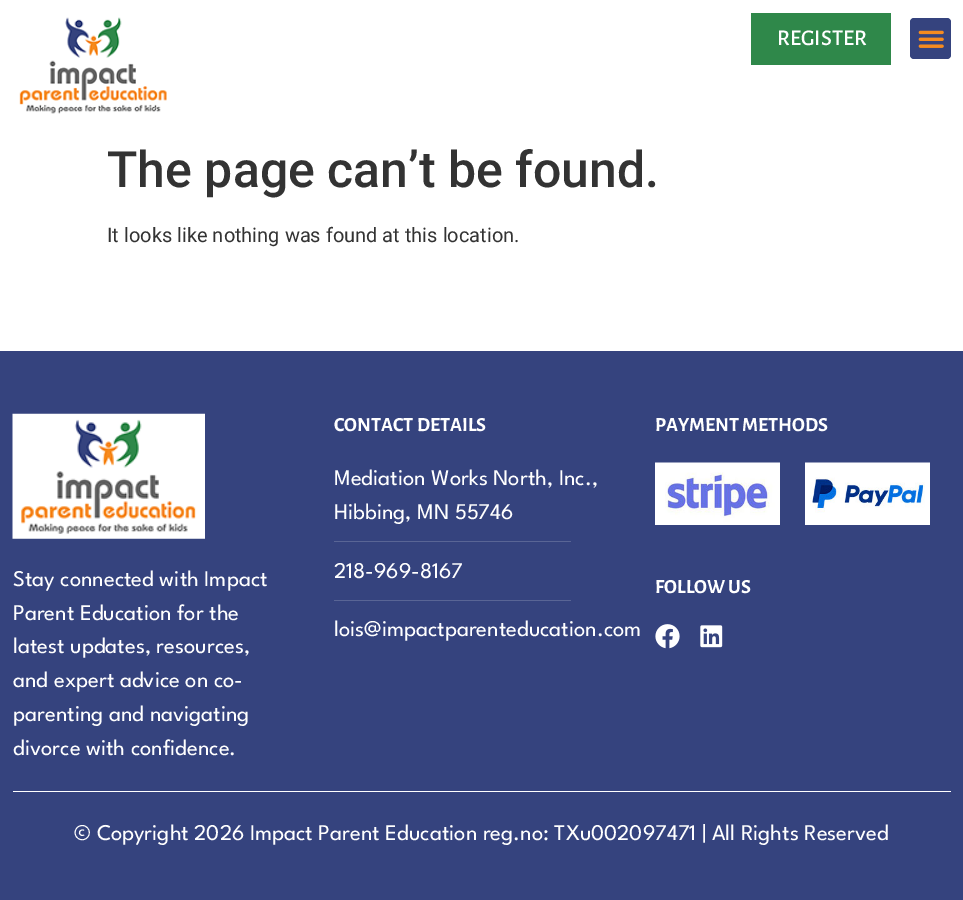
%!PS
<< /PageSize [963 900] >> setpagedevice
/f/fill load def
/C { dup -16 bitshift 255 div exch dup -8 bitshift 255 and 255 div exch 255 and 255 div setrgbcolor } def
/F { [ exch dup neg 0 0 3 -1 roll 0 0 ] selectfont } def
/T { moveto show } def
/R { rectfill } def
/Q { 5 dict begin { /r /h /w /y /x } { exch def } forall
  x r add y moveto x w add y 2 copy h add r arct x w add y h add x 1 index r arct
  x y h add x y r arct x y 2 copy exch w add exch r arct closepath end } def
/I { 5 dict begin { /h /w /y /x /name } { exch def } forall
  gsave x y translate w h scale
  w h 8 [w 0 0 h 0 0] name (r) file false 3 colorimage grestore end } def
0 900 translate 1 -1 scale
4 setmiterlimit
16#FFFFFF C
0 0 963 900 R
(1.rgb) 19 17 148 97 I
16#2F884A C
751 13 140 52 R
/AlegreyaSansSC-Medium 22.5 F
16#FFFFFF C
(REGISTER) 777 45 T
16#35437E C
910 18 41 41 4 Q f
(2.rgb) 918 30 26 18 I
/Roboto-Medium 50 F
16#333333 C
(The page can’t be found.) 107 187 T
/Roboto-Regular 20 F
(It looks like nothing was found at this location.) 107 242 T
16#35437E C
0 351 963 549 R
/AlegreyaSansSC-Bold 20 F
16#FFFFFF C
(CONTACT DETAILS) 334 431 T
/LeagueSpartan-Regular 22.5 F
(Mediation Works North, Inc.,) 334 485 T
(Hibbing, MN 55746) 334 519 T
16#596595 C
334 541 237 1 R
16#FFFFFF C
(218-969-8167) 334 578 T
16#596595 C
334 600 237 1 R
16#FFFFFF C
(lois@impactparenteducation.com) 334 636 T
/AlegreyaSansSC-Bold 20 F
(PAYMENT METHODS) 655 431 T
(3.rgb) 655 462 125 63 I
(4.rgb) 805 462 125 63 I
(FOLLOW US) 655 593 T
(5.rgb) 655 624 25 25 I
(6.rgb) 700 625 23 23 I
(7.rgb) 12 413 193 126 I
/LeagueSpartan-Regular 22.5 F
(Stay connected with Impact) 13 586 T
(Parent Education for the) 13 620 T
(latest updates, resources,) 13 653 T
(and expert advice on co-) 13 687 T
(parenting and navigating) 13 721 T
(divorce with confidence.) 13 755 T
13 791 938 1 R
(© Copyright 2026 Impact Parent Education reg.no: TXu002097471 | All Rights Reserved) 74 840 T
showpage
